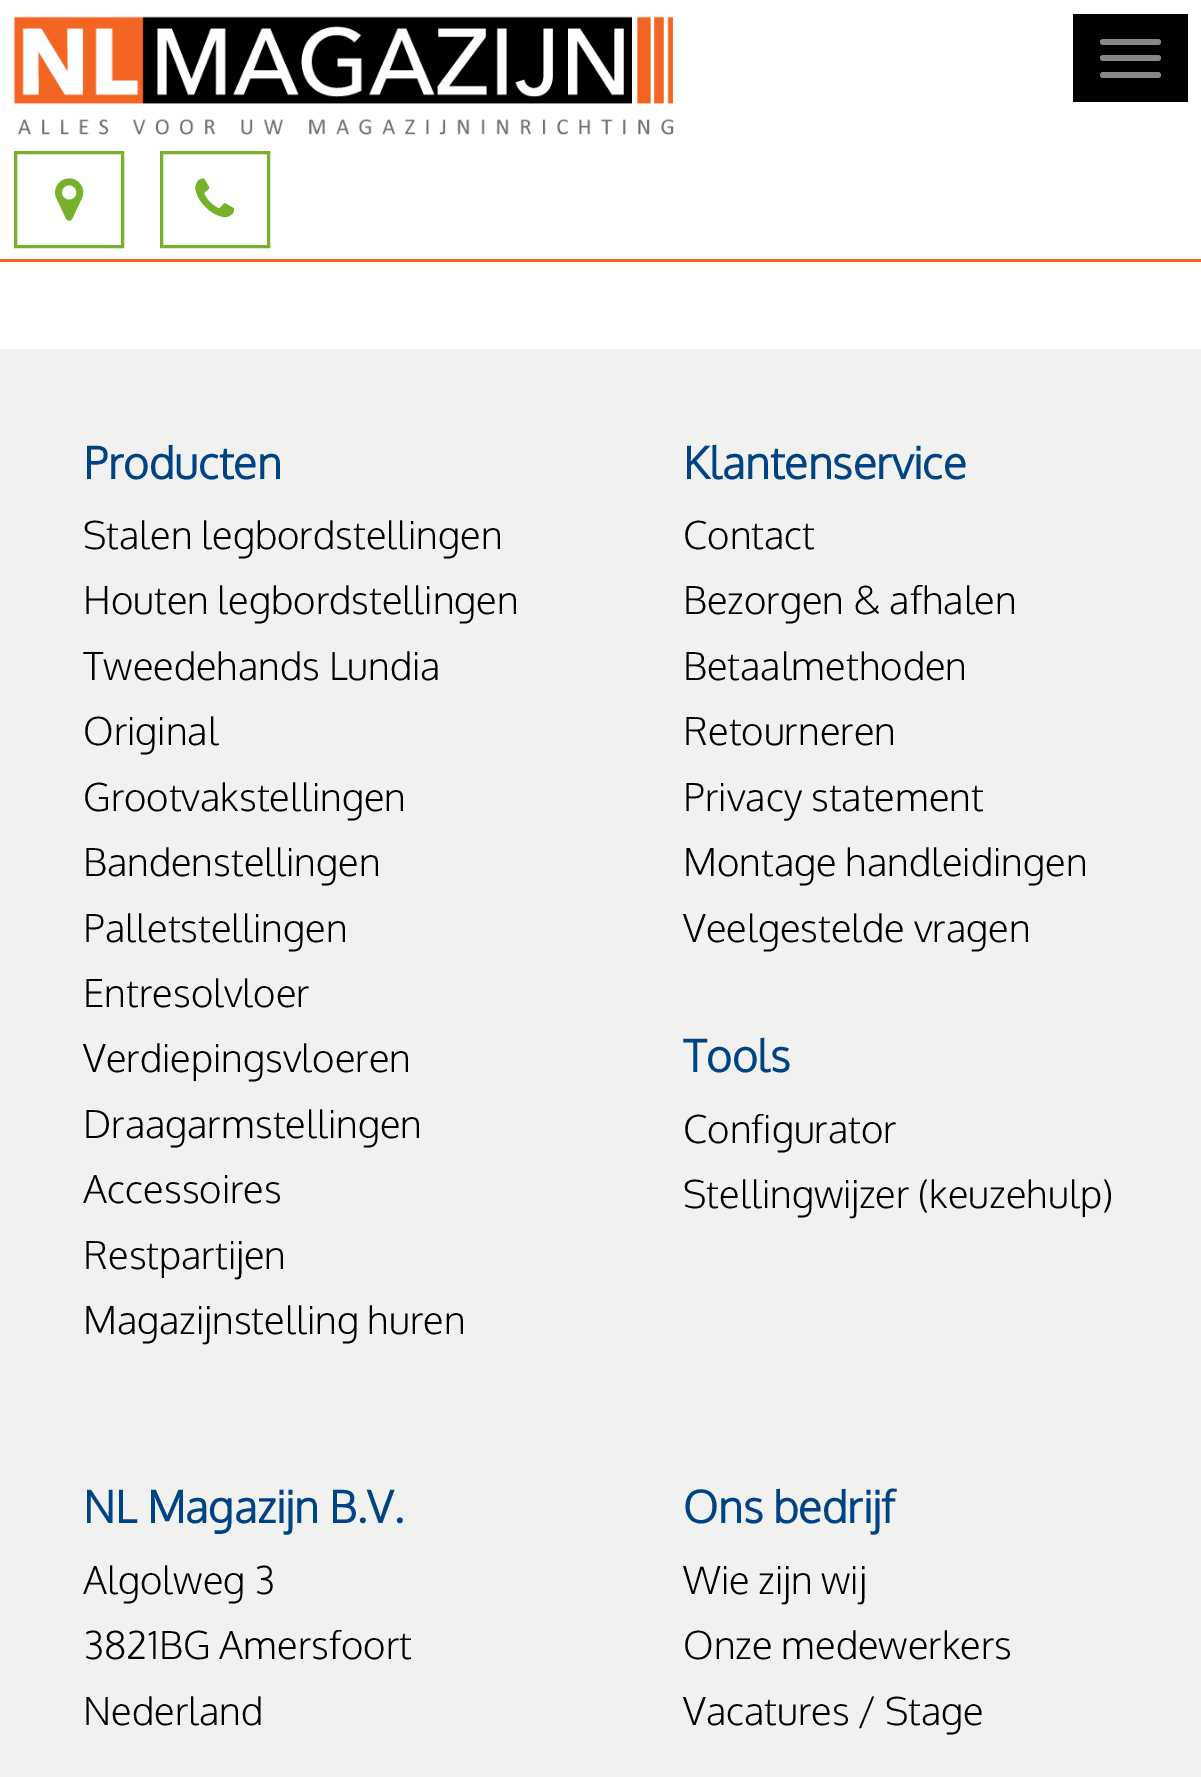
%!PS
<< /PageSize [1201 1777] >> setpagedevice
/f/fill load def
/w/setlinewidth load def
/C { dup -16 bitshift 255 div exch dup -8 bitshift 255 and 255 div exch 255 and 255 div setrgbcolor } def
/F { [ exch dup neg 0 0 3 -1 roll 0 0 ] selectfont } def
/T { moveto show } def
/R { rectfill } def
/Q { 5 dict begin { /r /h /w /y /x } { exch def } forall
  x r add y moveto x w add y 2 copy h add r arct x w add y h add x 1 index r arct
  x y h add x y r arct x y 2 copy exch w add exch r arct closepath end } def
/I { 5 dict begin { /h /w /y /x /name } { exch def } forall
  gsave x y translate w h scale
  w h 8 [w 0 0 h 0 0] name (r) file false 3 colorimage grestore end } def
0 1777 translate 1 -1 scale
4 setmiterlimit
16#FFFFFF C
0 0 1201 1777 R
16#F26522 C
0 259 1201 3 R
(1.rgb) 13 16 661 119 I
16#000000 C
1073 14 115 88 R
16#888888 C
1100 39 61 6 3 Q f
1100 55 61 6 3 Q f
1100 72 61 6 3 Q f
16#77B12B C
3 w
15.5 152.5 107 94 rectstroke
(2.rgb) 55 178 29 43 I
161.5 152.5 107 94 rectstroke
(3.rgb) 195 178 40 40 I
16#F1F2F0 C
0 349 1201 1428 R
/Oxygen-Bold 44 F
16#004385 C
(Producten) 83 479 T
/Oxygen-Light 38.5 F
16#000000 C
(Stalen legbordstellingen) 83 549 T
(Houten legbordstellingen) 83 614 T
(Tweedehands Lundia) 83 680 T
(Original) 83 745 T
(Grootvakstellingen) 83 811 T
(Bandenstellingen) 83 876 T
(Palletstellingen) 83 942 T
(Entresolvloer) 83 1007 T
(Verdiepingsvloeren) 83 1072 T
(Draagarmstellingen) 83 1138 T
(Accessoires) 83 1203 T
(Restpartijen) 83 1269 T
(Magazijnstelling huren) 83 1334 T
/Oxygen-Bold 44 F
16#004385 C
(Klantenservice) 683 479 T
/Oxygen-Light 38.5 F
16#000000 C
(Contact) 683 549 T
(Bezorgen & afhalen) 683 614 T
(Betaalmethoden) 683 680 T
(Retourneren) 683 745 T
(Privacy statement) 683 811 T
(Montage handleidingen) 683 876 T
(Veelgestelde vragen) 683 942 T
/Oxygen-Bold 44 F
16#004385 C
(Tools) 683 1072 T
/Oxygen-Light 38.5 F
16#000000 C
(Configurator) 683 1143 T
(Stellingwijzer \(keuzehulp\)) 683 1208 T
/Oxygen-Bold 44 F
16#004385 C
(NL Magazijn B.V.) 83 1523 T
/Oxygen-Light 38.5 F
16#000000 C
(Algolweg 3) 83 1594 T
(3821BG Amersfoort) 83 1659 T
(Nederland) 83 1725 T
/Oxygen-Bold 44 F
16#004385 C
(Ons bedrijf) 683 1523 T
/Oxygen-Light 38.5 F
16#000000 C
(Wie zijn wij) 683 1594 T
(Onze medewerkers) 683 1659 T
(Vacatures / Stage) 683 1725 T
showpage
